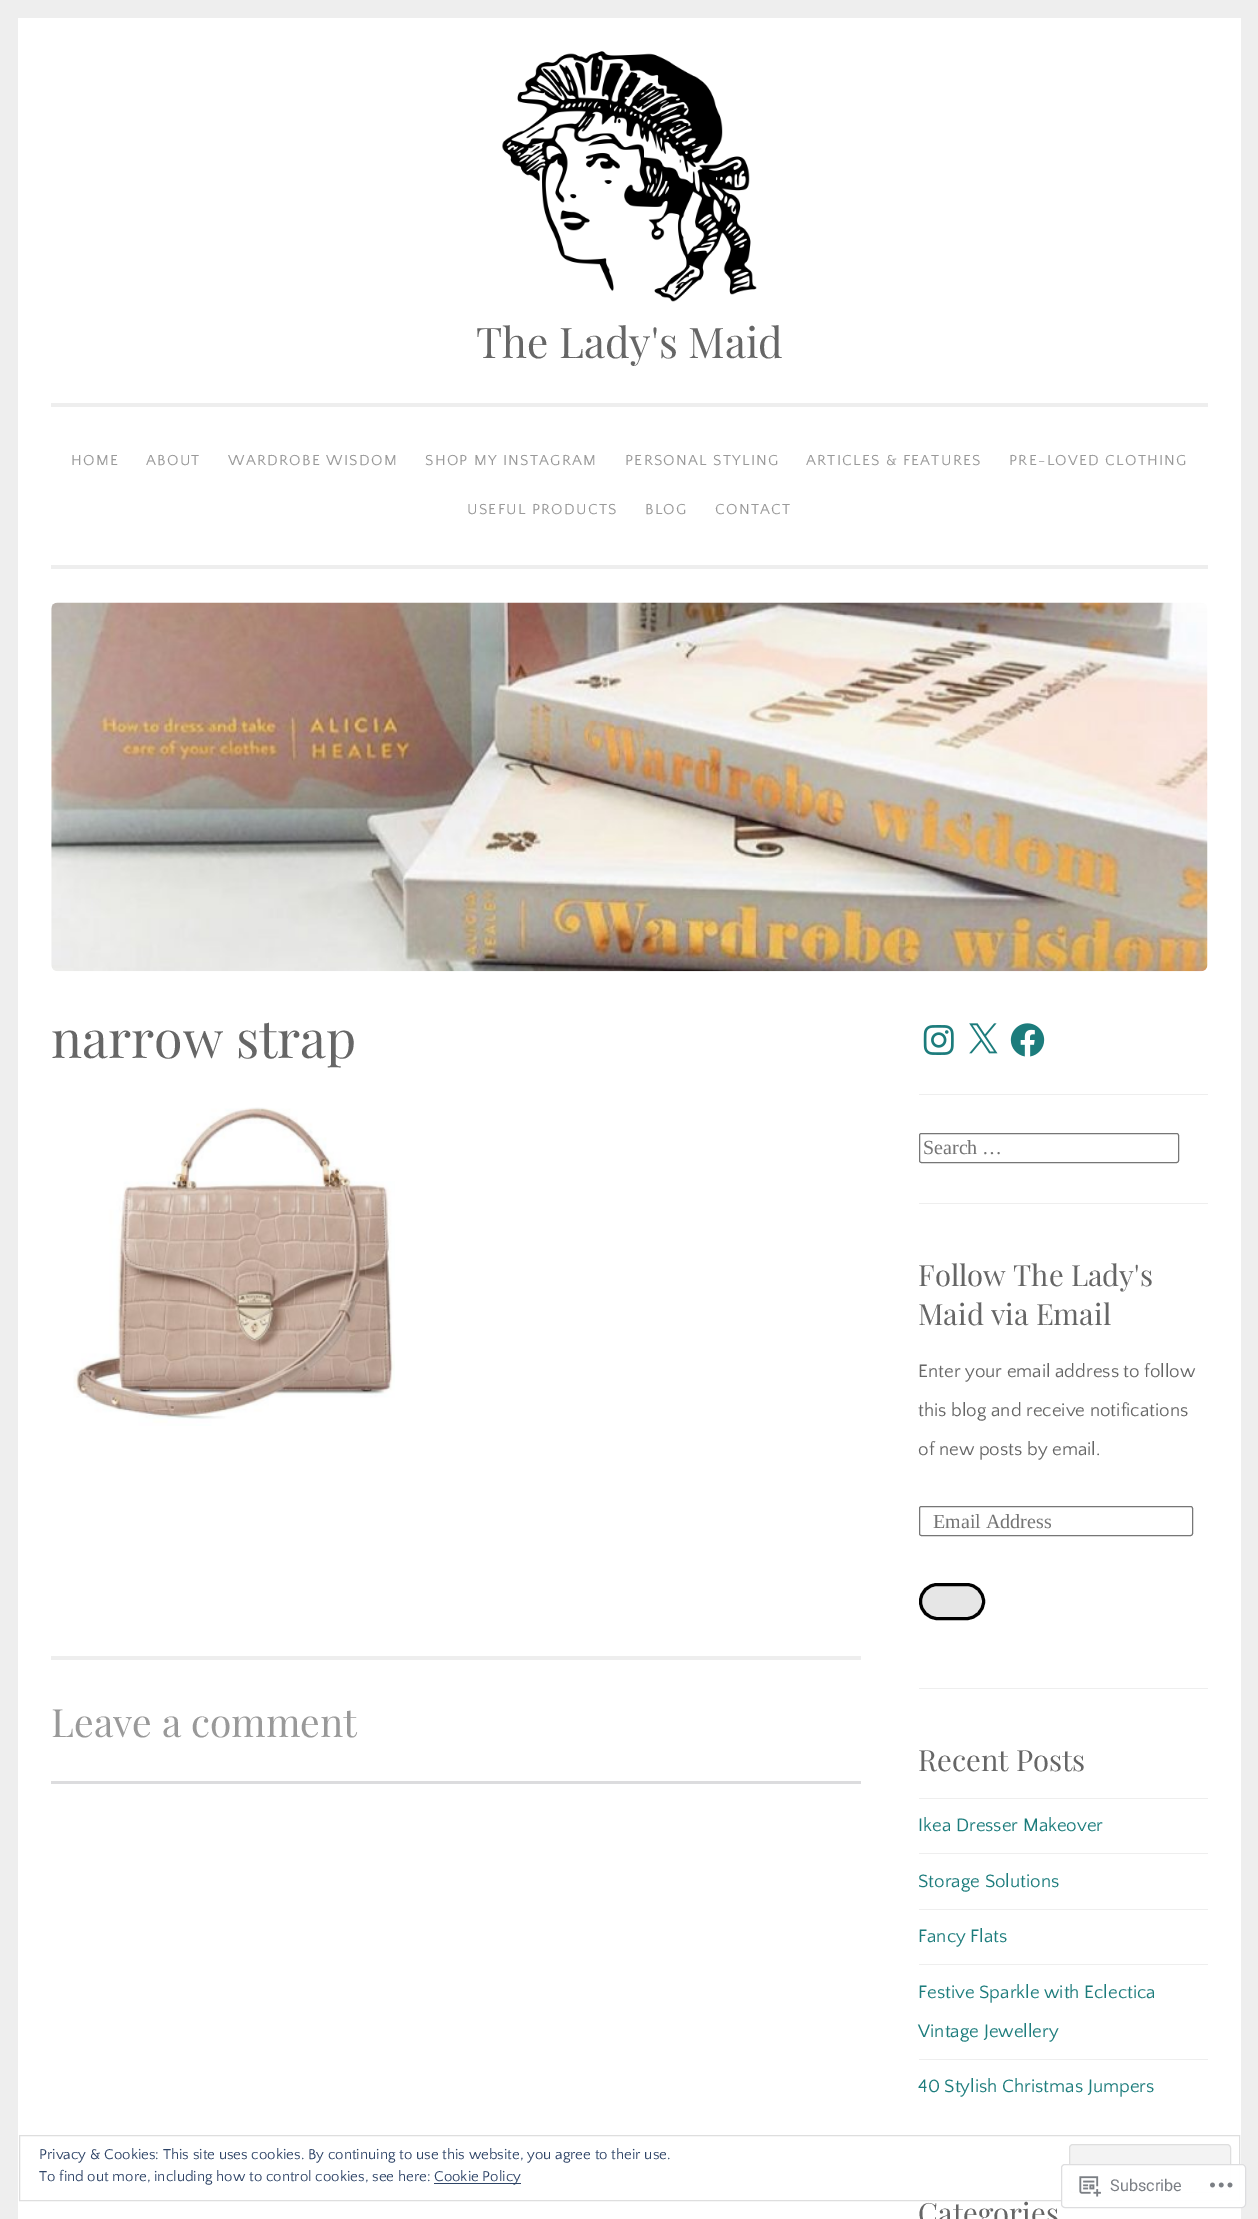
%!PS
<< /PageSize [1258 2219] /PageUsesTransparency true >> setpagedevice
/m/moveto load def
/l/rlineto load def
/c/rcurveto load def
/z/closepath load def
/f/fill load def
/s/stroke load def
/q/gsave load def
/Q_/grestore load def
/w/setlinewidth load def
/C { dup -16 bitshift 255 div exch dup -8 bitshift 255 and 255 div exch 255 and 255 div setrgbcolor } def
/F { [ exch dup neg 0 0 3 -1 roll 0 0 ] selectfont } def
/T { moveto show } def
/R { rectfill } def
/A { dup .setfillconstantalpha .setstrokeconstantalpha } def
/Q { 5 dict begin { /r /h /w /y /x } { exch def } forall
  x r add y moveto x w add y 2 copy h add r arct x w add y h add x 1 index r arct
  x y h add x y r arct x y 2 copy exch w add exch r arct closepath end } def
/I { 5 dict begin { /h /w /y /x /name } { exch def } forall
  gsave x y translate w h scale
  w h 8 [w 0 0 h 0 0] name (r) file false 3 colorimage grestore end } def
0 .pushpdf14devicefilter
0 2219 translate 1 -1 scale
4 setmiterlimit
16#EEEEEE C
0 0 1258 2219 R
16#FFFFFF C
18 18 1223 2201 R
16#EEEEEE C
51 565 1157 4 R
(1.rgb) 502 51 255 251 I
/PlayfairDisplay-Regular 42.25 F
16#666666 C
(The Lady's Maid) 476 358 T
16#EEEEEE C
51 403 1157 4 R
/QuattrocentoSans-Regular 15.25 F
16#999999 C
71 465 m 1.25 0 (HOME) ashow
146 465 m 1.25 0 (ABOUT) ashow
228 465 m 1.25 0 (WARDROBE WISDOM) ashow
425 465 m 1.25 0 (SHOP MY INSTAGRAM) ashow
625 465 m 1.25 0 (PERSONAL STYLING) ashow
806 465 m 1.25 0 (ARTICLES & FEATURES) ashow
1009 465 m 1.25 0 (PRE-LOVED CLOTHING) ashow
467 514 m 1.25 0 (USEFUL PRODUCTS) ashow
645 514 m 1.25 0 (BLOG) ashow
715 514 m 1.25 0 (CONTACT) ashow
(2.rgb) 51 602 1157 370 I
/PlayfairDisplay-Regular 52 F
16#666666 C
(narrow strap) 51 1058 T
(3.rgb) 73 1107 322 319 I
16#EEEEEE C
51 1656 810 4 R
/PlayfairDisplay-Regular 39 F
16#999999 C
(Leave a comment) 51 1737 T
16#DCDCDE C
51 1781 810 3 R
16#EEEEEE C
919 1094 289 1 R
(4.rgb) 923 1025 31 30 I
(5.rgb) 969 1023 29 31 I
(6.rgb) 1010 1023 35 34 I
919 1203 289 1 R
16#767676 C
919.5 1133.5 259 29 2 Q s
/LiberationSerif-Regular 20 F
16#757575 C
(Search …) 923 1154 T
16#EEEEEE C
919 1688 289 1 R
/PlayfairDisplay-Regular 29.25 F
16#666666 C
(Follow The Lady's) 918 1286 T
(Maid via Email) 918 1325 T
/QuattrocentoSans-Regular 18.75 F
(Enter your email address to follow) 918 1377 T
(this blog and receive notifications) 918 1416 T
(of new posts by email.) 918 1455 T
16#767676 C
919.5 1506.5 273 29 2 Q s
/LiberationSerif-Regular 20 F
16#757575 C
(Email Address) 933 1528 T
16#E6E6E6 C
919 1583 66 37 18.5 Q f
16#F3F3F3 C
938 1586 m 28 0 l 9 0 16 8 16 16 c 0 5 -2 9 -5 12 c 9 -8 7 -23 -4 -28 c -6 -2 -14 -1 -21 -1 c -10 0 -22 -2 -28 7 c -2 3 -3 6 -3 10 c 0 -8 8 -16 17 -16 c z f
16#000000 C
3 w
920.5 1584.5 63 34 17 Q s
/PlayfairDisplay-Regular 29.25 F
16#666666 C
(Recent Posts) 918 1771 T
16#EEEEEE C
919 1798 289 1 R
/QuattrocentoSans-Regular 18.75 F
16#1C7C7C C
(Ikea Dresser Makeover) 918 1831 T
16#EEEEEE C
919 1853 289 1 R
16#1C7C7C C
(Storage Solutions) 918 1887 T
16#EEEEEE C
919 1909 289 1 R
16#1C7C7C C
(Fancy Flats) 918 1942 T
16#EEEEEE C
919 1964 289 1 R
16#1C7C7C C
(Festive Sparkle with Eclectica) 918 1998 T
(Vintage Jewellery) 918 2037 T
16#EEEEEE C
919 2059 289 1 R
16#1C7C7C C
(40 Stylish Christmas Jumpers) 918 2092 T
/PlayfairDisplay-Regular 29.25 F
16#666666 C
(Categories) 918 2224 T
16#DEDEDE C
1 w
19.5 2135.5 1220 65 rectstroke
/QuattrocentoSans-Regular 15 F
16#2E4467 C
(Privacy & Cookies: This site uses cookies. By continuing to use this website, you agree to their use.) 39 2159 T
16#F3F3F3 C
1069.5 2144.5 161 48 3.5 Q q f Q_
16#DEDEDE C
s
16#2E4467 C
(To find out more, including how to control cookies, see here:) 39 2181 T
434 2183 87 1 R
(Cookie Policy) 434 2181 T
0.98 A
16#FFFFFF C
1061 2164 185 44 4 Q f
16#DCDCDE C
1061.5 2164.5 184 43 3.5 Q s
1 A
(7.rgb) 1079 2176 22 21 I
/Roboto-Regular 16.25 F
16#7A7E84 C
(Subscribe) 1110 2191 T
(8.rgb) 1210 2182 23 6 I
.poppdf14devicefilter showpage
